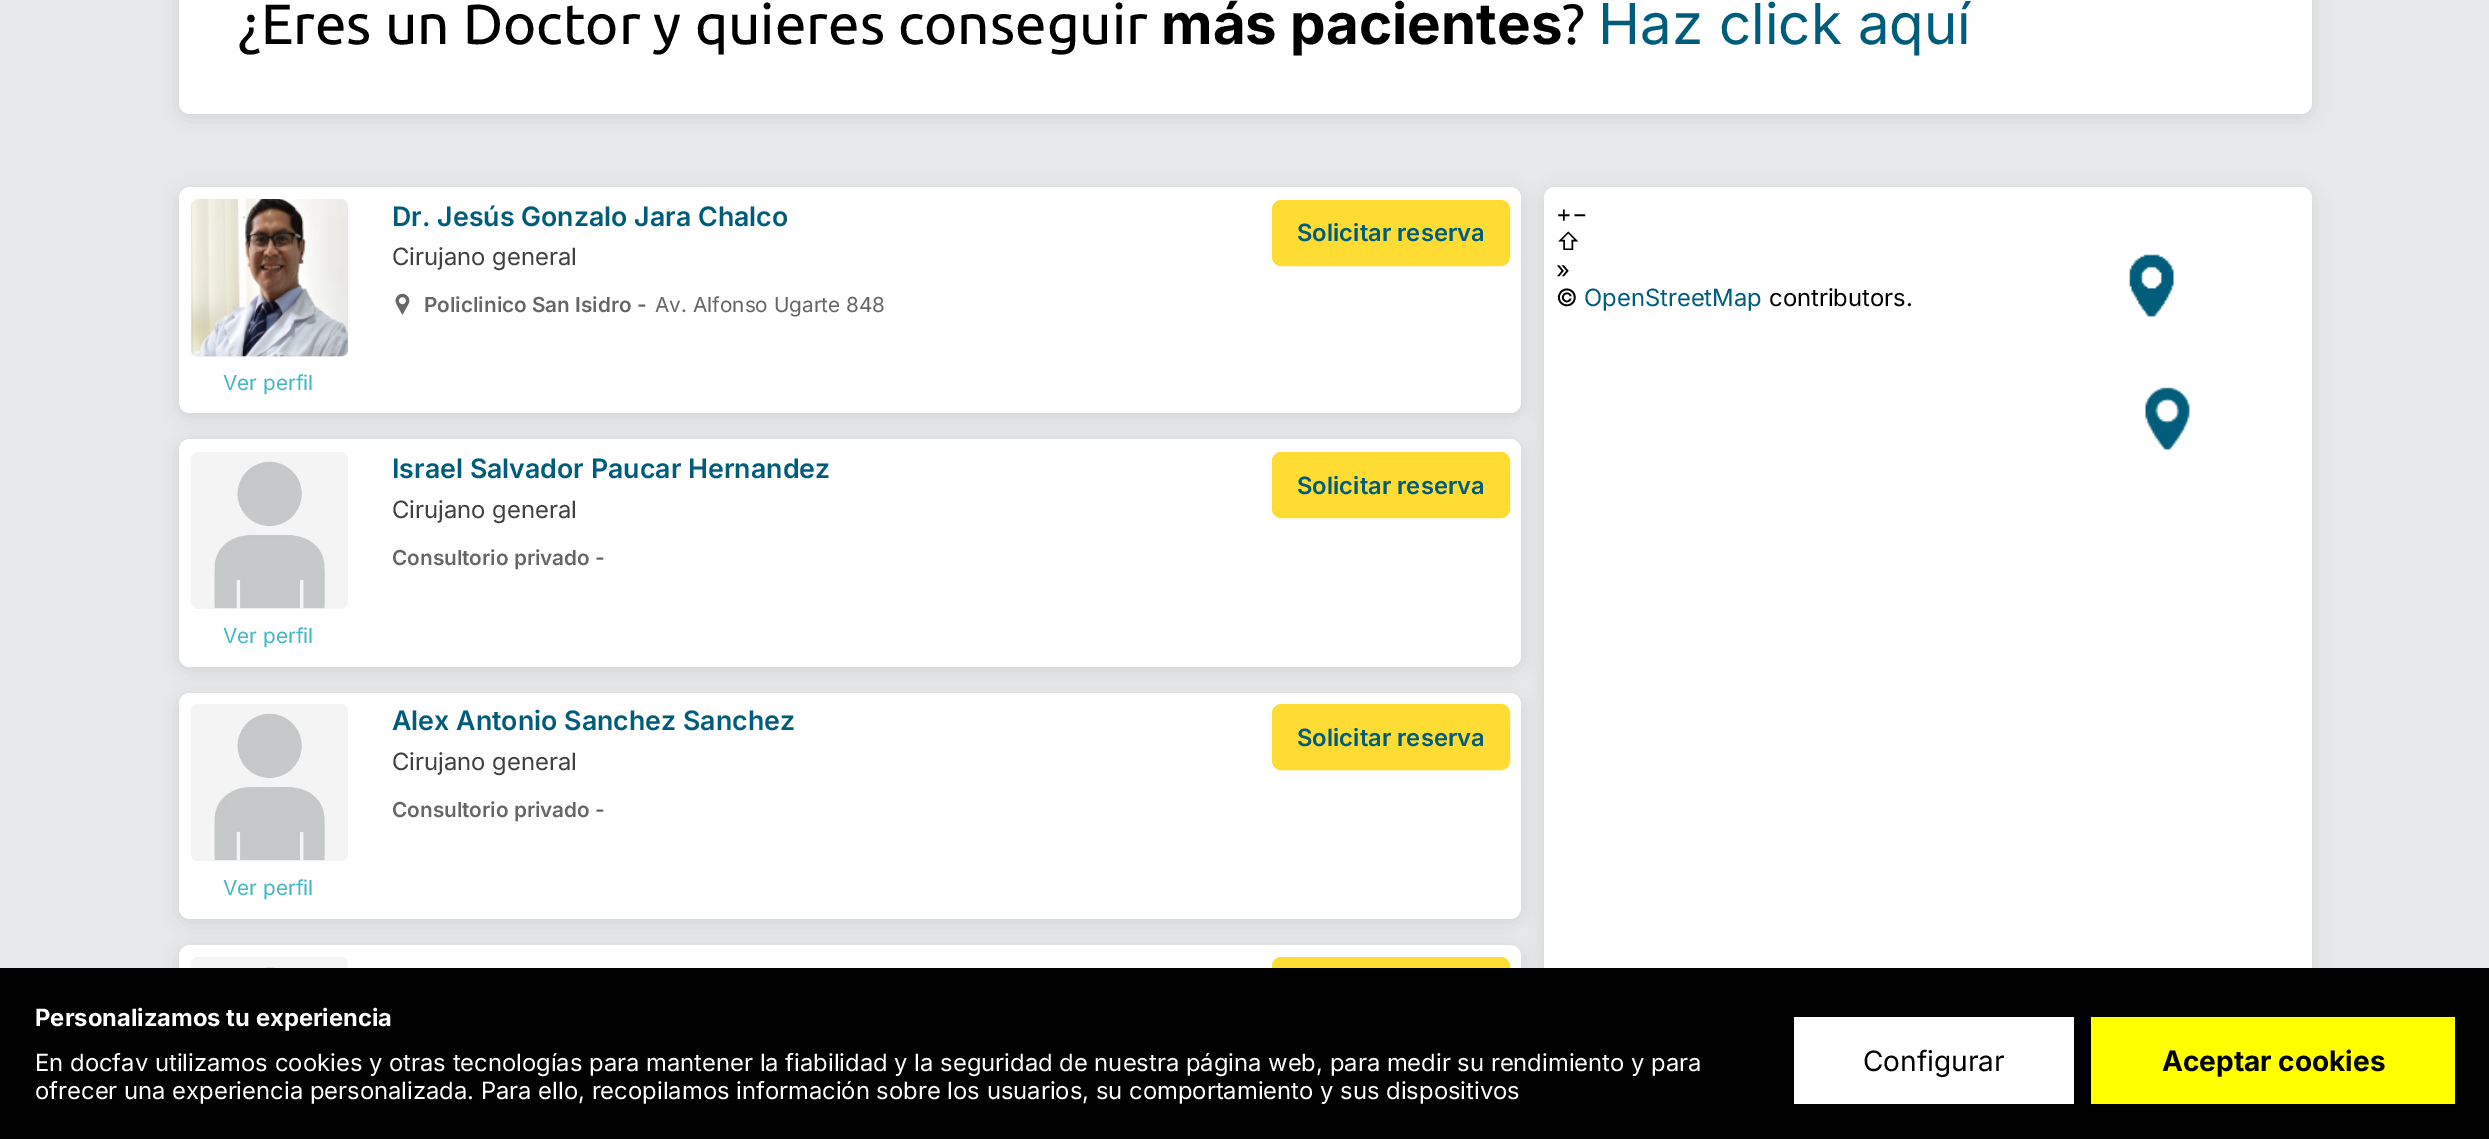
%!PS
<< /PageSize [2489 1139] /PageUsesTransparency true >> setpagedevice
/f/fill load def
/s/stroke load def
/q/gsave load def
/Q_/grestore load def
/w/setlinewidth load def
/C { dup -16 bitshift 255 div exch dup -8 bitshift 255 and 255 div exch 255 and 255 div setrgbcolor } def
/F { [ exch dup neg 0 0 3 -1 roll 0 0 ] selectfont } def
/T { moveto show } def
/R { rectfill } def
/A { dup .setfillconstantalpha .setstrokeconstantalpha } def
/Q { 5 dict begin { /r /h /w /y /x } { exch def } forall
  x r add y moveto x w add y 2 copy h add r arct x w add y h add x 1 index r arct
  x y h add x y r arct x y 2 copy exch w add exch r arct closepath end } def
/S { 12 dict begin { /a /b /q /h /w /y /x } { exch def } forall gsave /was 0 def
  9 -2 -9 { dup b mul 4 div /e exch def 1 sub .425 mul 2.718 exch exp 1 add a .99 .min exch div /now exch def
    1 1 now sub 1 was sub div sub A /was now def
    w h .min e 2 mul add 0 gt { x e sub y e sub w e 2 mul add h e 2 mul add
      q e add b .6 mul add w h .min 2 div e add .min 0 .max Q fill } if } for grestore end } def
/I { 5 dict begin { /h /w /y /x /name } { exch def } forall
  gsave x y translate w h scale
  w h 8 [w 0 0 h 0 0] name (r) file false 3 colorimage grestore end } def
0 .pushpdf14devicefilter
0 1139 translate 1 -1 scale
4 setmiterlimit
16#E8E9EB C
0 0 2489 1139 R
16#000000 C
179 -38 2133 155 11 9 .1 S
16#FFFFFF C
179 -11 2133 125 11 Q f
/Ubuntu-Regular 56.5 F
16#000000 C
(¿Eres un Doctor y quieres conseguir) 238 44 T
/Inter-Bold 56.5 F
(más pacientes) 1161 44 T
/Ubuntu-Regular 56.5 F
(?) 1562 44 T
/Inter-Regular 56.5 F
16#005C7B C
(Haz click aquí) 1598 44 T
16#000000 C
1544 191 768 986 11 9 .1 S
16#FFFFFF C
1544 187 768 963 11 Q f
16#000000 C
179 191 1342 226 11 9 .1 S
16#FFFFFF C
179 187 1342 226 11 Q f
/Inter-SemiBold 26.75 F
16#005C7B C
(Dr. Jesús Gonzalo Jara Chalco) 392 226 T
16#FFDC34 C
1274 202 234 62 7 Q q f Q_
4 w
s
/Inter-SemiBold 23.8 F
16#005C7B C
(Solicitar reserva) 1297 241 T
/Inter-Regular 23.8 F
16#404040 C
(Cirujano general) 392 265 T
(1.rgb) 395 293 15 22 I
/Inter-SemiBold 20.75 F
16#666666 C
(Policlinico San Isidro -) 424 312 T
/Inter-Regular 20.75 F
(Av. Alfonso Ugarte 848) 655 312 T
16#F4F4F4 C
191 200 157 157 7 Q f
(2.rgb) 190 199 159 158 I
16#44B7C3 C
(Ver perfil) 223 390 T
16#000000 C
179 443 1342 227 11 9 .1 S
16#FFFFFF C
179 439 1342 228 11 Q f
/Inter-SemiBold 26.75 F
16#005C7B C
(Israel Salvador Paucar Hernandez) 392 478 T
16#FFDC34 C
1274 454 234 62 7 Q q f Q_
s
/Inter-SemiBold 23.8 F
16#005C7B C
(Solicitar reserva) 1297 494 T
/Inter-Regular 23.8 F
16#404040 C
(Cirujano general) 392 518 T
/Inter-SemiBold 20.75 F
16#666666 C
(Consultorio privado -) 392 565 T
16#F4F4F4 C
191 452 157 157 7 Q f
(3.rgb) 214 461 111 148 I
/Inter-Regular 20.75 F
16#44B7C3 C
(Ver perfil) 223 643 T
16#000000 C
179 697 1342 225 11 9 .1 S
16#FFFFFF C
179 693 1342 226 11 Q f
/Inter-SemiBold 26.75 F
16#005C7B C
(Alex Antonio Sanchez Sanchez) 392 730 T
16#FFDC34 C
1274 706 234 62 7 Q q f Q_
s
/Inter-SemiBold 23.8 F
16#005C7B C
(Solicitar reserva) 1297 746 T
/Inter-Regular 23.8 F
16#404040 C
(Cirujano general) 392 770 T
/Inter-SemiBold 20.75 F
16#666666 C
(Consultorio privado -) 392 817 T
16#F4F4F4 C
191 704 157 157 7 Q f
(3.rgb) 214 713 111 148 I
/Inter-Regular 20.75 F
16#44B7C3 C
(Ver perfil) 223 895 T
16#000000 C
179 949 1342 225 11 9 .1 S
16#FFFFFF C
179 945 1342 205 11 Q f
16#F4F4F4 C
191 957 157 158 7 Q f
(4.rgb) 264 967 11 1 I
16#FFDC34 C
1274 959 234 63 7 Q q f Q_
s
/Inter-Regular 23.8 F
16#000000 C
(+−) 1556 222 T
(⇧) 1556 250 T
(») 1556 278 T
(©) 1556 306 T
16#005C7B C
(OpenStreetMap) 1584 306 T
16#000000 C
(contributors.) 1769 306 T
(5.rgb) 2129 254 61 196 I
0 968 2489 171 R
/Inter-Bold 23.8 F
16#FFFFFF C
(Personalizamos tu experiencia) 35 1026 T
/Inter-Regular 23.8 F
(En docfav utilizamos cookies y otras tecnologías para mantener la fiabilidad y la seguridad de nuestra página web, para medir su rendimiento y para) 35 1071 T
(ofrecer una experiencia personalizada. Para ello, recopilamos información sobre los usuarios, su comportamiento y sus dispositivos) 35 1099 T
1794 1017 280 87 R
/Inter-Regular 28 F
16#000000 C
(Configurar) 1863 1071 T
16#FFFF00 C
2091 1017 364 87 R
/Inter-Bold 28 F
16#000000 C
(Aceptar cookies) 2162 1071 T
.poppdf14devicefilter showpage
